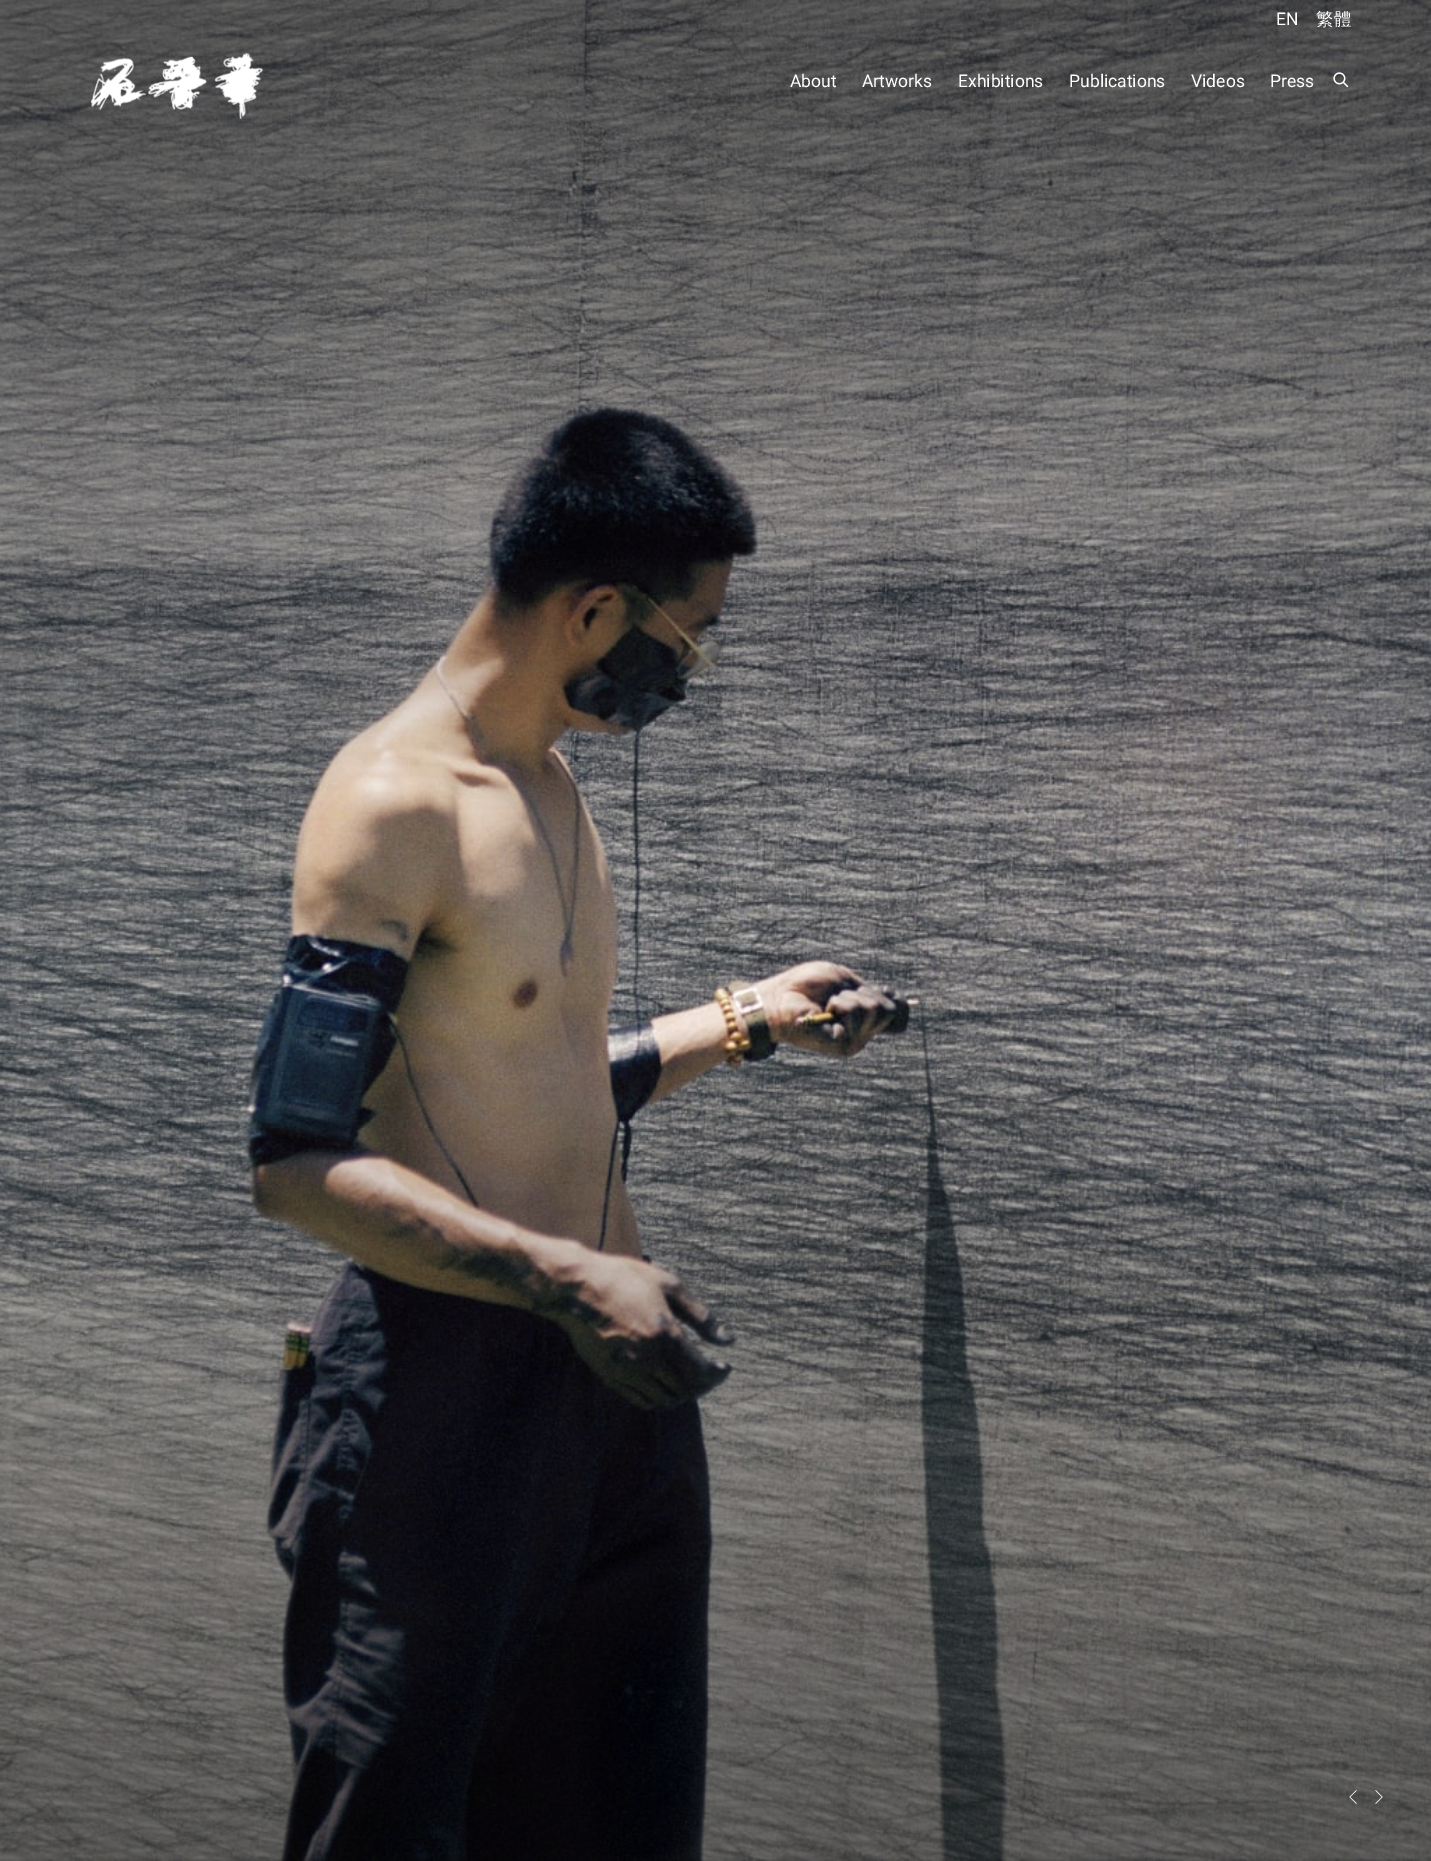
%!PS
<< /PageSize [1431 1861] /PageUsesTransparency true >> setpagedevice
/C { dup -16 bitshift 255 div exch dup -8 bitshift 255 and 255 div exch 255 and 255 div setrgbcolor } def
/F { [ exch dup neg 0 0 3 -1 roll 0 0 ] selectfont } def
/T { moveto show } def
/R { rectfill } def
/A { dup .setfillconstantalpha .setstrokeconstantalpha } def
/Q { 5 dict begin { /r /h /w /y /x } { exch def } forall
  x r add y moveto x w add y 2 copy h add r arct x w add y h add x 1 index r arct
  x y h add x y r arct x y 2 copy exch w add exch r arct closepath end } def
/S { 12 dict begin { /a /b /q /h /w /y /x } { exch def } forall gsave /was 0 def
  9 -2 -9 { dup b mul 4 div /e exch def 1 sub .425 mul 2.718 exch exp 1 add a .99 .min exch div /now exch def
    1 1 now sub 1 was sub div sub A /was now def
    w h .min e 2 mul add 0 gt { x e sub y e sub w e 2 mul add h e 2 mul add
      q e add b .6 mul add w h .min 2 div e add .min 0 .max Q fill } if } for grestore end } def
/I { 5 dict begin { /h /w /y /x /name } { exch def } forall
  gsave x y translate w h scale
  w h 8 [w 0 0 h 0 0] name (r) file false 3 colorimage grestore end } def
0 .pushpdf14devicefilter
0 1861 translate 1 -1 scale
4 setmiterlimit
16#FFFFFF C
0 0 1431 1861 R
(1.rgb) 0 0 1431 1861 I
(2.rgb) 91 52 172 67 I
/Roboto-Regular 17.5 F
(EN) 1276 25 T
/WenQuanYiZenHei-Medium 17.5 F
(繁體) 1316 25 T
/Roboto-Regular 17.5 F
(About) 790 87 T
(Artworks) 862 87 T
(Exhibitions) 958 87 T
(Publications) 1069 87 T
(Videos) 1191 87 T
(Press) 1270 87 T
(3.rgb) 1333 72 16 16 I
(4.rgb) 1349 1790 8 14 I
(5.rgb) 1375 1790 8 14 I
16#000000 C
0 1861 1431 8 0 2.5 .23 S
.poppdf14devicefilter showpage
